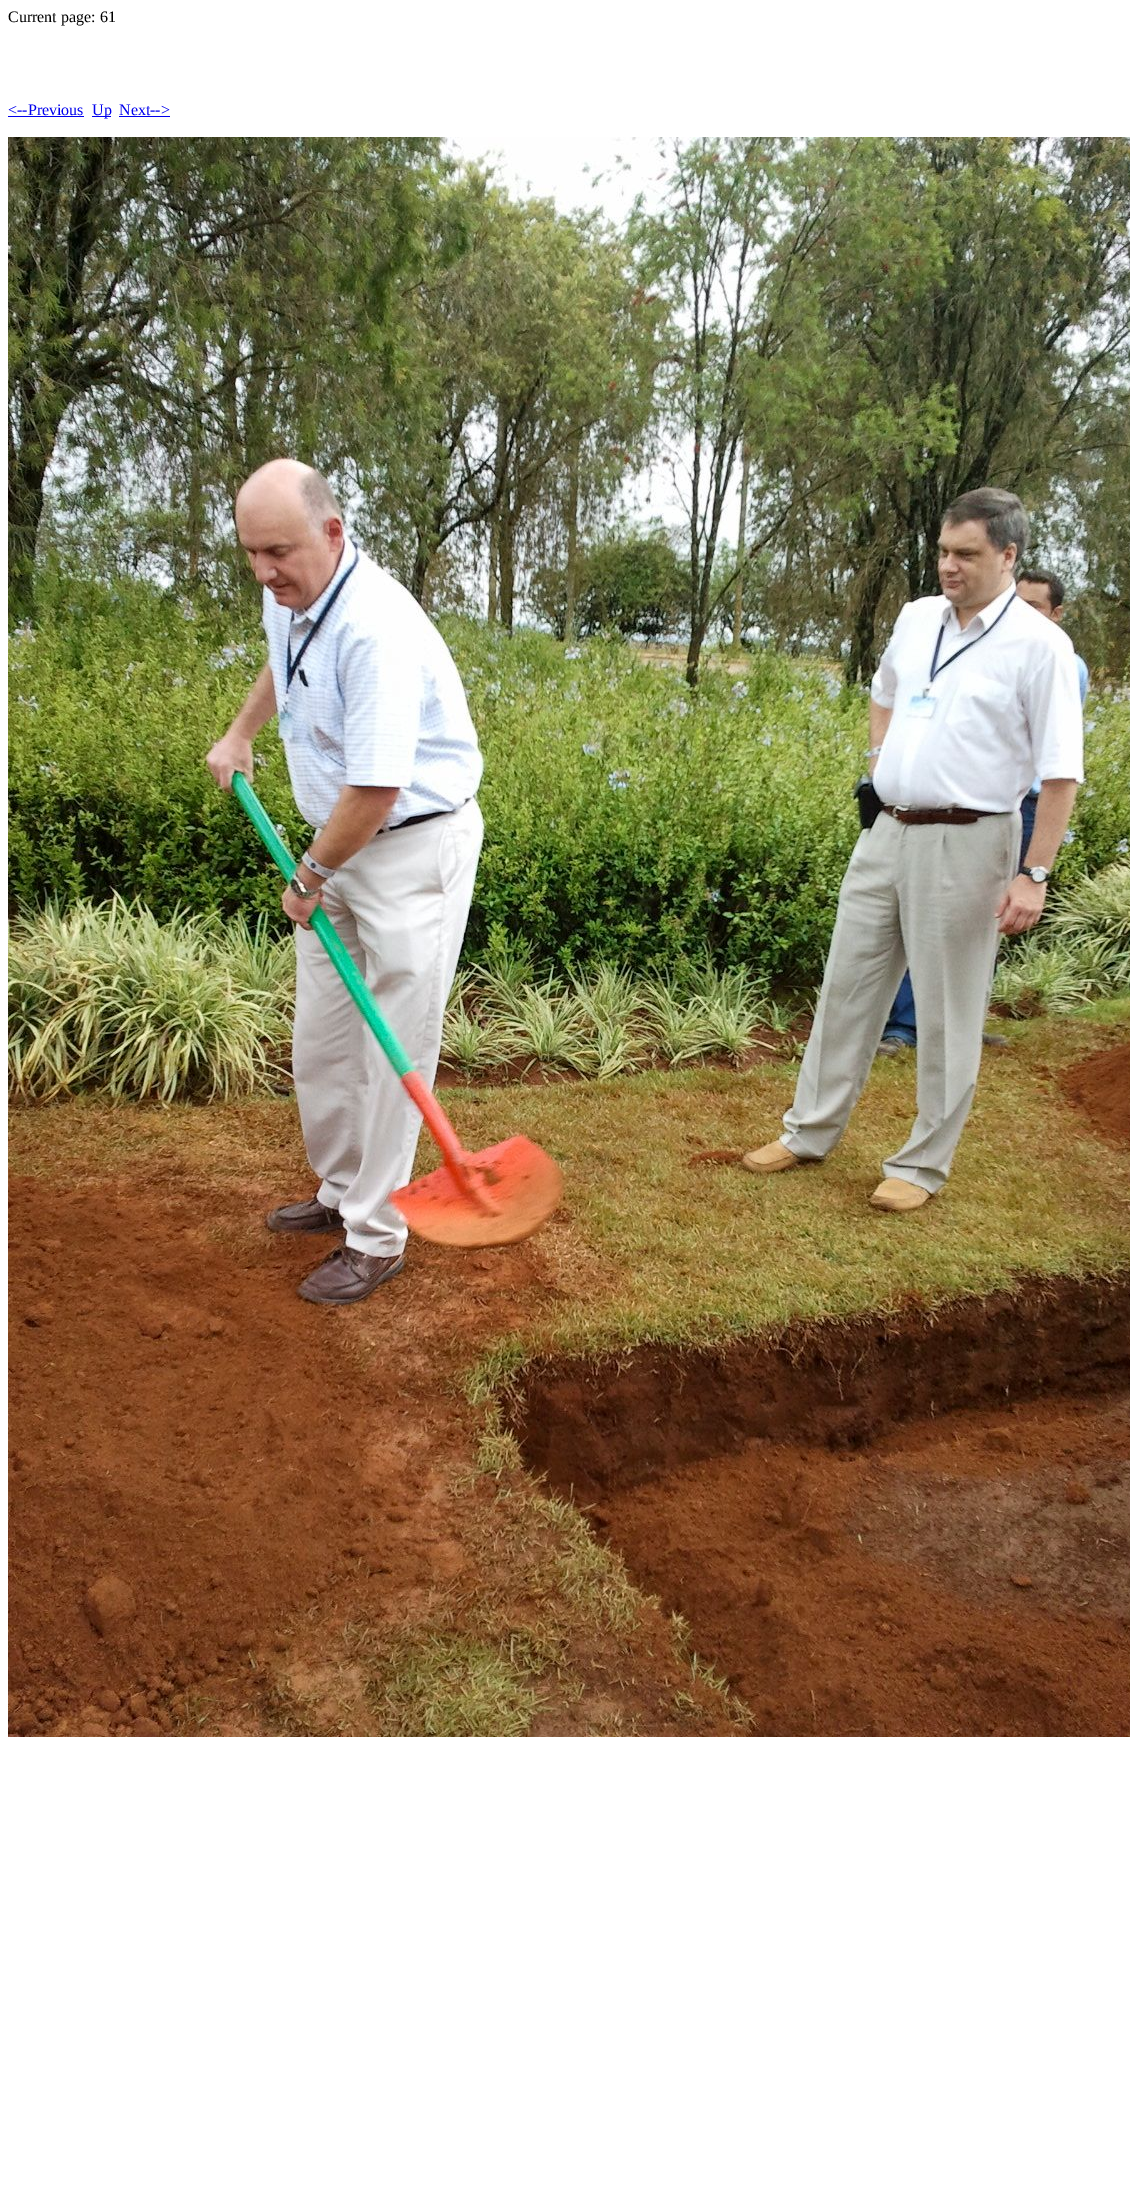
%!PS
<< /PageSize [1130 2200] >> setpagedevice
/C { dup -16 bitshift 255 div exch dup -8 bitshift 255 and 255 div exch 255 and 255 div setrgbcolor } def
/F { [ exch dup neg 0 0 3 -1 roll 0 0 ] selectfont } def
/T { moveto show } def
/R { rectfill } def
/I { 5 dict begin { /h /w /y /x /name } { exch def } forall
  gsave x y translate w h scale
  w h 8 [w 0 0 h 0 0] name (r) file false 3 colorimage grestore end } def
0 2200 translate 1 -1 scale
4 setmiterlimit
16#FFFFFF C
0 0 1130 2200 R
/LiberationSerif-Regular 16 F
16#000000 C
(Current page: 61) 8 22 T
16#0000EE C
(<--Previous) 8 115 T
8 116 76 1 R
92 116 19 1 R
(Up) 92 115 T
(Next-->) 119 115 T
119 116 51 1 R
(1.rgb) 8 137 1122 1600 I
showpage
